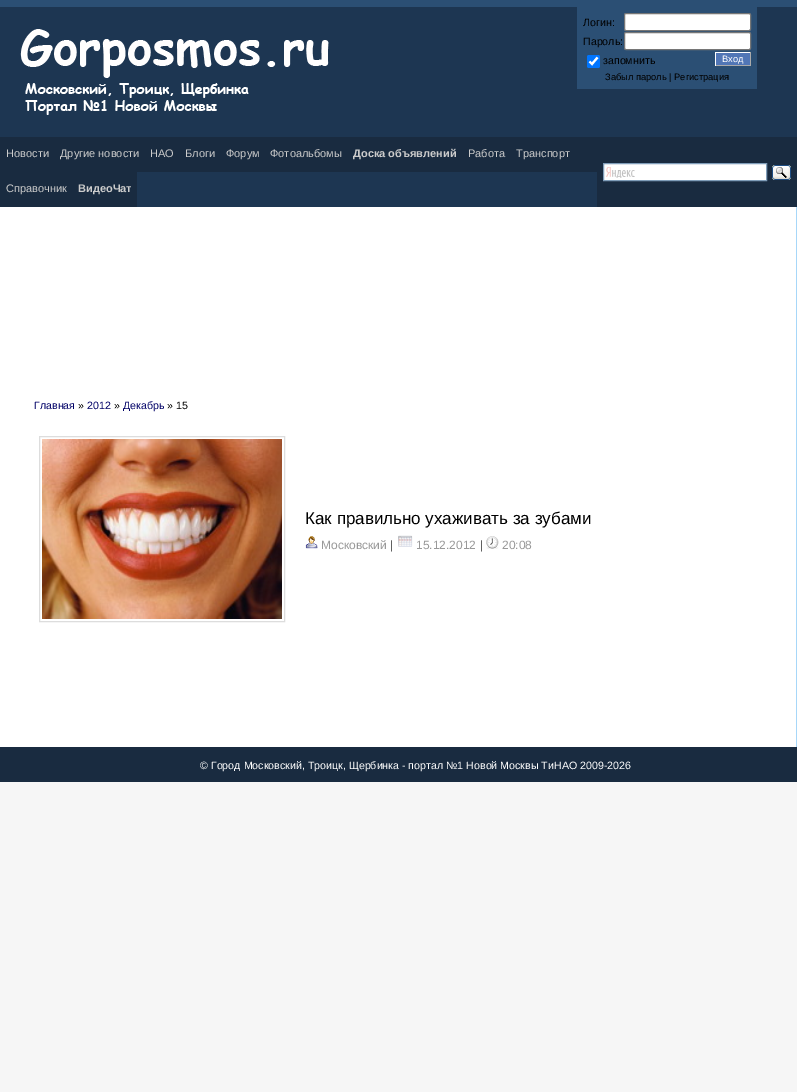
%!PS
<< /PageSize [797 1092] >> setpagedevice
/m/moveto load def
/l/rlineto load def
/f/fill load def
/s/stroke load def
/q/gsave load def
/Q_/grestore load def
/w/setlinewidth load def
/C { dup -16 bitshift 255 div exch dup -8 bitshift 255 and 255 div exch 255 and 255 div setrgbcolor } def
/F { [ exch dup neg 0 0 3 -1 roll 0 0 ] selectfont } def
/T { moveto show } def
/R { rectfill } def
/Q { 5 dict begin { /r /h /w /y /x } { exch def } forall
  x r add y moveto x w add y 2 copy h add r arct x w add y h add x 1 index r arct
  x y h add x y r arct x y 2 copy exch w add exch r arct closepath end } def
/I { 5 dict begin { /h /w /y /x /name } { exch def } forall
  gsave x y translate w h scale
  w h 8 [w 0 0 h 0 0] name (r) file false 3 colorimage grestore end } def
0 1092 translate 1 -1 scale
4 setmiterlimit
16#F6F6F6 C
0 0 797 1092 R
16#2B4F74 C
0 0 797 7 R
16#1D3652 C
0 7 797 130 R
(1.rgb) 20 29 309 86 I
16#2B4F74 C
577 7 180 82 R
/LiberationSans-Regular 10.65 F
16#000000 C
(Логин:) 583 26 T
16#FFFFFF C
624.5 13.5 126 17 1.5 Q q f Q_
16#767676 C
s
16#000000 C
(Пароль:) 583 45 T
16#FFFFFF C
624.5 32.5 126 17 1.5 Q q f Q_
16#767676 C
s
16#0075FF C
587 55 13 13 2 Q f
16#FFFFFF C
2.1 w
589.5 61.5 m 2.5 2.5 l 5.5 -6.5 l s
16#000000 C
(запомнить) 603 64 T
16#5176B6 C
716 53 34 12 R
16#FFFFFF C
715 52 36 1 R
16#AAAAAA C
750 52 1 14 R
715 65 36 1 R
16#FFFFFF C
715 52 1 14 R
/LiberationSans-Regular 9.3 F
(Вход) 722 62 T
16#000000 C
(Забыл пароль | Регистрация) 605 80 T
16#1D3652 C
137 172 460 35 R
16#192B40 C
0 137 597 35 R
/LiberationSans-Regular 11 F
16#CCCCCC C
(Новости) 6 157 T
(Другие новости) 60 157 T
(НАО) 150 157 T
(Блоги) 185 157 T
(Форум) 226 157 T
(Фотоальбомы) 270 157 T
/LiberationSans-Bold 11 F
(Доска объявлений) 353 157 T
/LiberationSans-Regular 11 F
(Работа) 468 157 T
(Транспорт) 516 157 T
16#192B40 C
0 172 137 35 R
16#CCCCCC C
(Справочник) 6 192 T
/LiberationSans-Bold 11 F
(ВидеоЧат) 78 192 T
16#192B40 C
597 137 200 70 R
16#FFFFFF C
604 164 162 16 R
(2.rgb) 606 167 29 11 I
16#7F9DB9 C
1 w
603.5 163.5 163 17 rectstroke
(3.rgb) 772 165 19 15 I
16#A7D7F9 C
796 207 1 540 R
16#FFFFFF C
0 207 796 540 R
/LiberationSans-Regular 10.65 F
16#000066 C
(Главная) 34 409 T
16#000000 C
(») 78 409 T
16#000066 C
(2012) 87 409 T
16#000000 C
(») 114 409 T
16#000066 C
(Декабрь) 123 409 T
16#000000 C
(» 15) 167 409 T
16#DDDDDD C
39.5 436.5 245 185 rectstroke
(4.rgb) 42 439 240 180 I
/LiberationSans-Regular 17 F
16#000000 C
(Как правильно ухаживать за зубами) 305 524 T
(5.rgb) 305 536 13 13 I
/LiberationSans-Regular 12 F
16#999999 C
(Московский) 321 549 T
16#606060 C
(|) 390 549 T
(6.rgb) 398 535 15 12 I
16#999999 C
(15.12.2012) 416 549 T
16#606060 C
(|) 480 549 T
(7.rgb) 486 536 13 13 I
16#999999 C
(20:08) 502 549 T
16#192B40 C
0 747 797 35 R
/LiberationSans-Regular 10.65 F
16#FFFFFF C
(© Город Московский, Троицк, Щербинка - портал №1 Новой Москвы ТиНАО 2009-2026) 200 769 T
showpage
